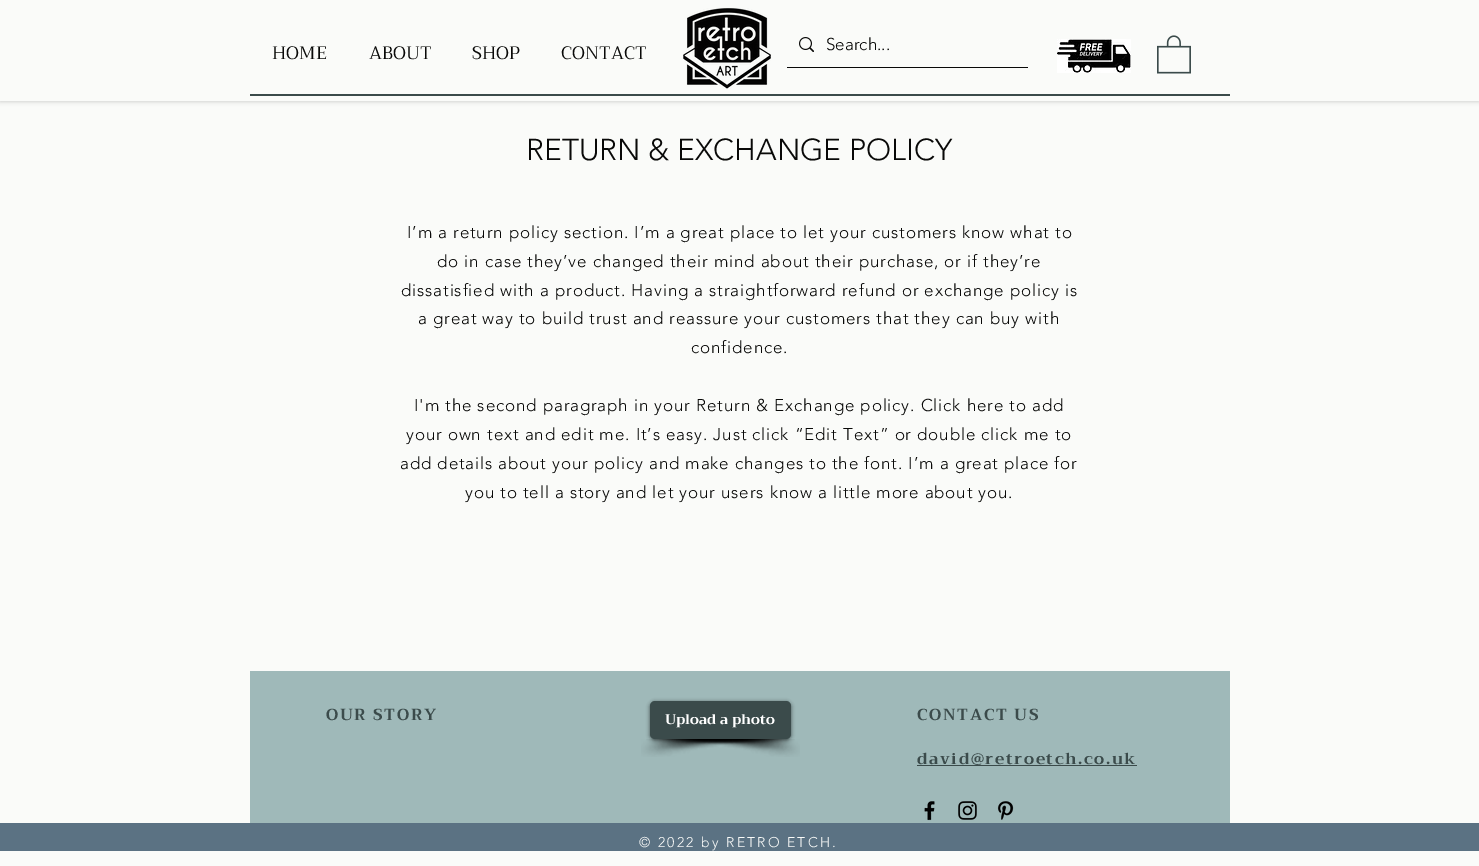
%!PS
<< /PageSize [1479 866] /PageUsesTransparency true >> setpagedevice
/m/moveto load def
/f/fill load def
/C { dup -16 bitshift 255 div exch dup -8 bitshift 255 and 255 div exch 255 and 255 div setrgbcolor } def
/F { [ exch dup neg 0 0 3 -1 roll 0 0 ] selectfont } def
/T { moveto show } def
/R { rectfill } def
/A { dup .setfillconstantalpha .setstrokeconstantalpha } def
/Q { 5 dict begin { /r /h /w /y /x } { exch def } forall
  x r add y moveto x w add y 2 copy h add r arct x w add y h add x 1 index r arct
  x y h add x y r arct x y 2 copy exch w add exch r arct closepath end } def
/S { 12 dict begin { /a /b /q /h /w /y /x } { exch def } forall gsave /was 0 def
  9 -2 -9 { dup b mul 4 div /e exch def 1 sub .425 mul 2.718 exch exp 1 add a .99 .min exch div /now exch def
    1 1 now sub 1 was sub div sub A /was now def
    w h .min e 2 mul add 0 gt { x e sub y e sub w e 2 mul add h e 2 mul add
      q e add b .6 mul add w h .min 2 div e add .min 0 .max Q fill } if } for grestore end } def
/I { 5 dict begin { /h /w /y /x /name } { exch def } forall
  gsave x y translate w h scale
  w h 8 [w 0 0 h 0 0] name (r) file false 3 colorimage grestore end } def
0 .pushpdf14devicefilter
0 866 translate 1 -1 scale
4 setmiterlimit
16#FAFBF9 C
0 0 1479 866 R
16#000000 C
0 0 1479 101 0 2.5 .22 S
16#FAFBF9 C
0 0 1479 101 R
/Trirong-Regular 18 F
16#090908 C
(HOME) 272 59 T
(ABOUT) 369 59 T
(SHOP) 472 59 T
(CONTACT) 561 59 T
(1.rgb) 683 8 88 81 I
787 67 241 1 R
(2.rgb) 799 37 15 15 I
/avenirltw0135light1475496-Light 17 F
(Search...) 826 50 T
(3.rgb) 1057 39 74 34 I
(4.rgb) 1157 35 34 39 I
16#3B4B4B C
250 94 980 2 R
/avenirltw0135light1475496-Light 30 F
16#090908 C
(RETURN & EXCHANGE POLICY) 526 160 T
/avenirltw0135light1475496-Light 17 F
407 238 m .85 0 (I’m a return policy section. I’m a great place to let your customers know what to) ashow
437 267 m .85 0 (do in case they’ve changed their mind about their purchase, or if they’re) ashow
401 296 m .85 0 (dissatisfied with a product. Having a straightforward refund or exchange policy is) ashow
418 324 m .85 0 (a great way to build trust and reassure your customers that they can buy with) ashow
691 353 m .85 0 (confidence.) ashow
414 411 m .85 0 (I'm the second paragraph in your Return & Exchange policy. Click here to add) ashow
406 440 m .85 0 (your own text and edit me. It’s easy. Just click “Edit Text” or double click me to) ashow
400 469 m .85 0 (add details about your policy and make changes to the font. I’m a great place for) ashow
465 498 m .85 0 (you to tell a story and let your users know a little more about you.) ashow
16#9FB9B9 C
250 671 980 152 R
/Trirong-Bold 16 F
16#3B4B4B C
326 720 m 1.6 0 (OUR STORY) ashow
(5.rgb) 641 739 154 18 I
(6.rgb) 646 739 154 18 I
16#000000 C
650 702 141 38 5 2 .6 S
16#3B4B4B C
650 701 141 38 5 Q f
/Trirong-Bold 14 F
16#FFFFFF C
(Upload a photo) 665 724 T
/Trirong-Bold 16 F
16#3B4B4B C
917 720 m 1.6 0 (CONTACT US) ashow
917 764 m 1.6 0 (david@retroetch.co.uk) ashow
917 765 220 1 R
(7.rgb) 924 801 11 20 I
(8.rgb) 958 801 19 19 I
(9.rgb) 997 801 17 19 I
16#5B7283 C
0 823 1479 28 R
/avenirltw0135light1475496-Light 14 F
16#FAFBF9 C
639 847 m 2.1 0 (© 2022 by RETRO ETCH.) ashow
.poppdf14devicefilter showpage
